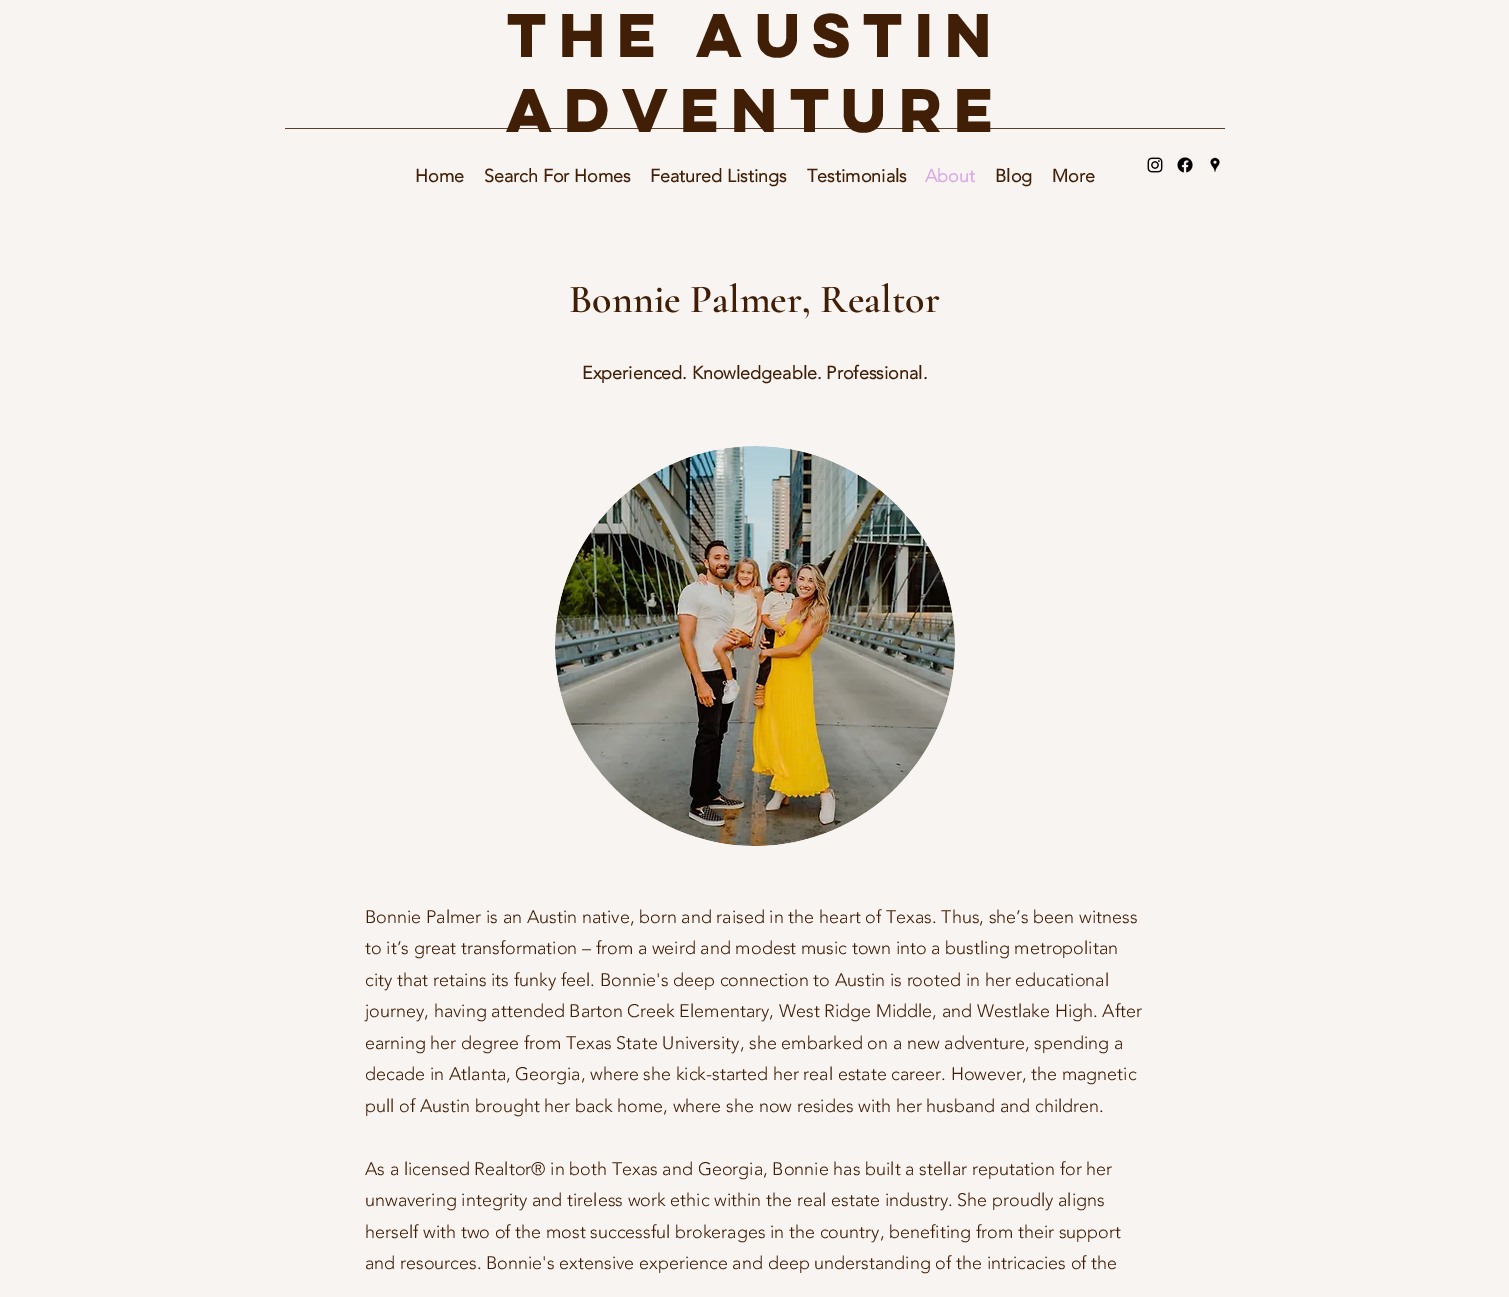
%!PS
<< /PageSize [1509 1297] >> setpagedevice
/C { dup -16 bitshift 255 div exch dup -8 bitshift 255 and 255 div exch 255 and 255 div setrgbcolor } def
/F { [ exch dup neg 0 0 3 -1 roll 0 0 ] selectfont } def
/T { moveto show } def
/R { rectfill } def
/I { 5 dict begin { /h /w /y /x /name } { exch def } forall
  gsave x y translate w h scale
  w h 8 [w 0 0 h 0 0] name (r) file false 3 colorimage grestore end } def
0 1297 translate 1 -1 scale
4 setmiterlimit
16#F8F4F1 C
0 0 1509 1297 R
/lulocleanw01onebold-Bold 55 F
16#411E06 C
(The Austin) 507 57 T
16#5C3E29 C
285 128 940 1 R
16#411E06 C
(Adventure) 506 132 T
(1.rgb) 1147 157 16 16 I
(2.rgb) 1177 157 16 16 I
(3.rgb) 1210 157 10 15 I
/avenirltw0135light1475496-Bold 18 F
(Home) 415 182 T
(Search For Homes) 484 182 T
(Featured Listings) 650 182 T
(Testimonials) 807 182 T
16#DDAAE6 C
(About) 925 182 T
16#411E06 C
(Blog) 995 182 T
(More) 1052 182 T
/CormorantGaramond-SemiBold 40 F
(Bonnie Palmer, Realtor) 569 312 T
/avenirltw0135light1475496-Bold 18 F
(Experienced. Knowledgeable. Professional.) 582 379 T
(4.rgb) 555 446 400 400 I
/avenirltw0135light1475496-Light 18 F
(Bonnie Palmer is an Austin native, born and raised in the heart of Texas. Thus, she’s been witness) 365 923 T
(to it’s great transformation – from a weird and modest music town into a bustling metropolitan) 365 954 T
(city that retains its funky feel. Bonnie's deep connection to Austin is rooted in her educational) 365 986 T
(journey, having attended Barton Creek Elementary, West Ridge Middle, and Westlake High. After) 365 1017 T
(earning her degree from Texas State University, she embarked on a new adventure, spending a) 365 1049 T
(decade in Atlanta, Georgia, where she kick-started her real estate career. However, the magnetic) 365 1080 T
(pull of Austin brought her back home, where she now resides with her husband and children.) 365 1112 T
(As a licensed Realtor® in both Texas and Georgia, Bonnie has built a stellar reputation for her) 365 1175 T
(unwavering integrity and tireless work ethic within the real estate industry. She proudly aligns) 365 1206 T
(herself with two of the most successful brokerages in the country, benefiting from their support) 365 1238 T
(and resources. Bonnie's extensive experience and deep understanding of the intricacies of the) 365 1269 T
showpage
